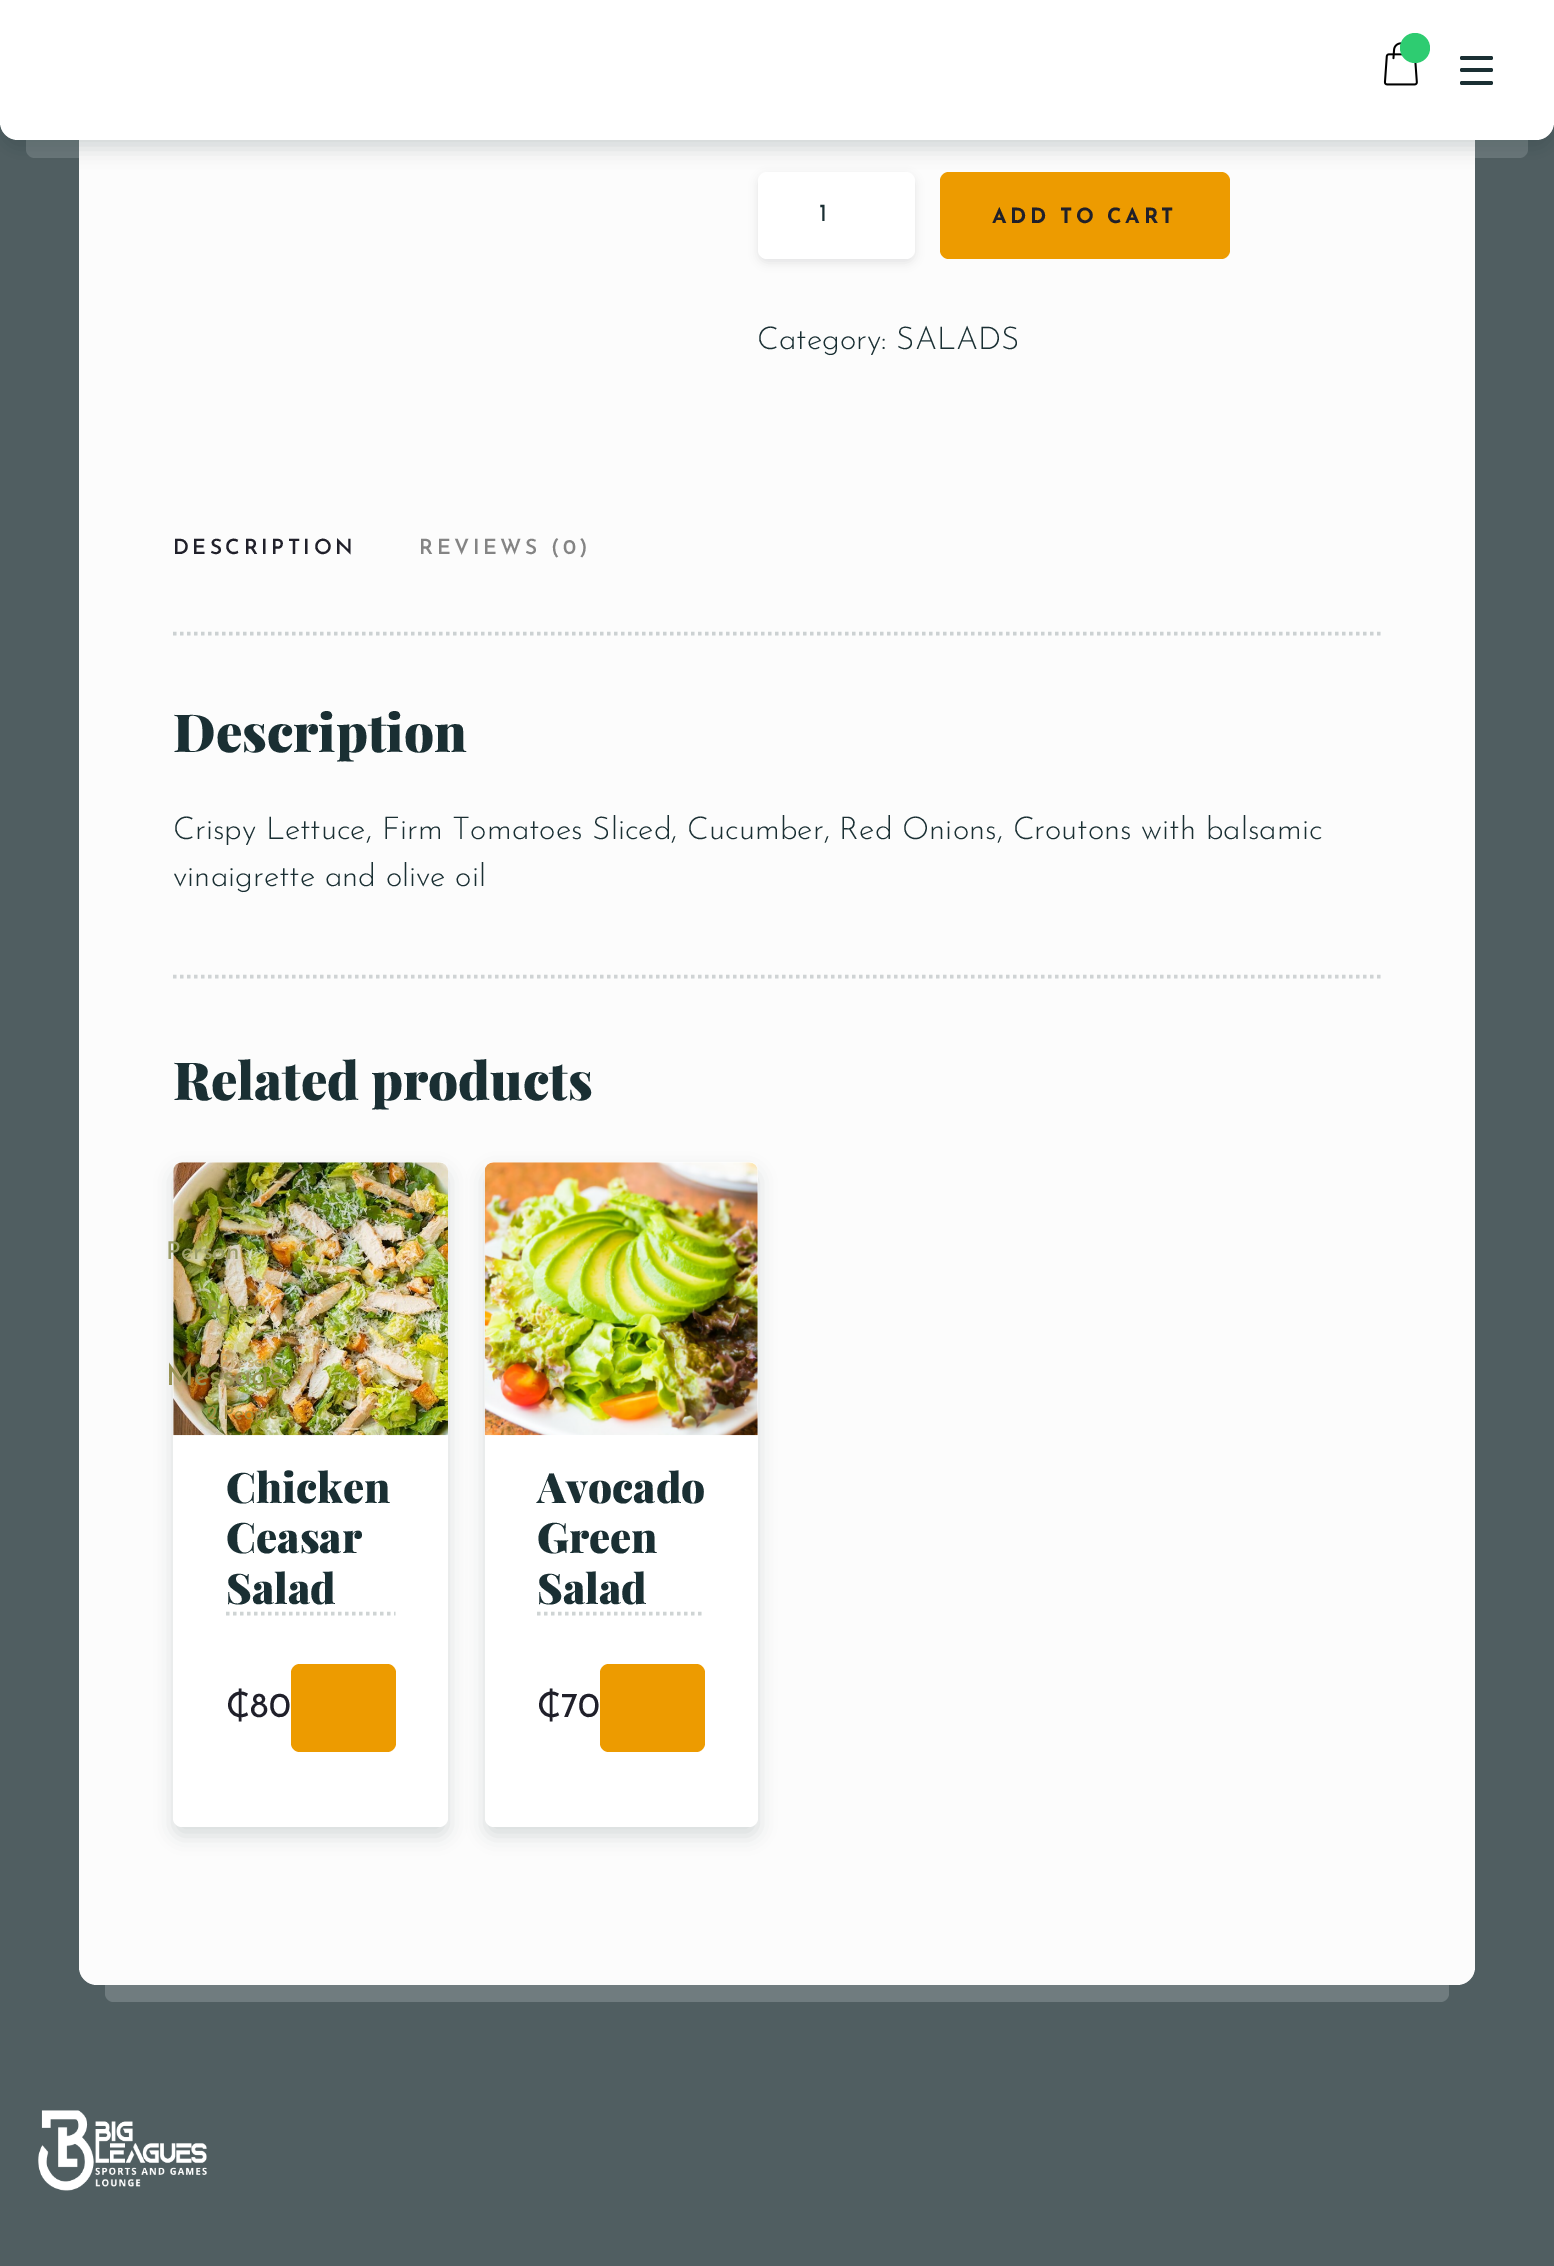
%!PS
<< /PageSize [1554 2266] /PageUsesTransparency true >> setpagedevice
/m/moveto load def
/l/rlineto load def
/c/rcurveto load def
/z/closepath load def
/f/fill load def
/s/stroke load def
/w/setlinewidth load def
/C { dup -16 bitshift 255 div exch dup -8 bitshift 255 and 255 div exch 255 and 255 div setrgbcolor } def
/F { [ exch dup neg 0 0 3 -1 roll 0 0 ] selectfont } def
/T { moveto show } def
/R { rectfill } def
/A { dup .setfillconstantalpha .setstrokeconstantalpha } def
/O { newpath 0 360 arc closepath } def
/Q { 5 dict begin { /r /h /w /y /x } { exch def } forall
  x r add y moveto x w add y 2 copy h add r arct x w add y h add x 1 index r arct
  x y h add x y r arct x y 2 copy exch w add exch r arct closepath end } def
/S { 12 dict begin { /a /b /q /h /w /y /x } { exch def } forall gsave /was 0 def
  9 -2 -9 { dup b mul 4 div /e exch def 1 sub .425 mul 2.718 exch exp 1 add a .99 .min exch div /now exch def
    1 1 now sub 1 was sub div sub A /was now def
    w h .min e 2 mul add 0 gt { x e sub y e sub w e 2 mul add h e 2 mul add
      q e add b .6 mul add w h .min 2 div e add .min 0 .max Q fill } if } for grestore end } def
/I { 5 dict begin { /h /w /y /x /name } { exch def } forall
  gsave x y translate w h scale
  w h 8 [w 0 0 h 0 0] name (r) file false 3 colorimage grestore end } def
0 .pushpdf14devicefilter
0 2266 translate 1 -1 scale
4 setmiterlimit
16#505E61 C
0 0 1554 2266 R
16#FCFCFC C
79 140 1396 1740 R
16#1A2F33 C
758 175 157 88 9 4.5 .11 S
16#FFFFFF C
758 172 157 87 9 Q f
16#ED9B00 C
940 172 290 87 9 Q f
16#1A2F33 C
0 9 1554 140 18 9 .2 S
16#FFFFFF C
0 0 m 1554 0 l 0 122 l 0 10 -8 18 -18 18 c -1518 0 l -10 0 -18 -8 -18 -18 c z f
(1.rgb) 1383 42 35 44 I
16#2ECC71 C
1415 48 15 O f
16#1A2F33 C
1460 68 33 4 2 Q f
1460 56 33 4 2 Q f
1460 81 33 4 2 Q f
0.15 A
16#F2F6F7 C
26 140 m 1502 0 l 0 9 l 0 5 -4 9 -9 9 c -1484 0 l -5 0 -9 -4 -9 -9 c z f
/JosefinSans-Regular 24.5 F
1 A
16#1A2F33 C
(1) 819 221 T
/JosefinSans-Bold 21 F
16#20202A C
992 223 m 3.5 0 (ADD TO CART) ashow
/JosefinSans-Light 31.5 F
16#1A2F33 C
(Category: SALADS) 757 349 T
16#CFD3D4 C
3.5 w
[3.5 3.5] 0 setdash
173 976.5 m 1208 0 l s
/JosefinSans-SemiBold 21 F
16#20202A C
173 554 m 3.5 0 (DESCRIPTION) ashow
16#848484 C
419 554 m 3.5 0 (REVIEWS \(0\)) ashow
16#CCD1D2 C
173 633.5 m 1208 0 l s
/PlayfairDisplay-Black 52.5 F
16#1A2F33 C
(Description) 173 752 T
/JosefinSans-Light 31.5 F
(Crispy Lettuce, Firm Tomatoes Sliced, Cucumber, Red Onions, Croutons with balsamic) 173 839 T
(vinaigrette and olive oil) 173 886 T
/PlayfairDisplay-Black 52.5 F
(Related products) 173 1100 T
173 1171 275 665 9 9 .15 S
16#FFFFFF C
173 1162 275 665 9 Q f
(2.rgb) 173 1162 275 274 I
/PlayfairDisplay-Black 42 F
16#1A2F33 C
(Chicken) 226 1503 T
(Ceasar) 226 1553 T
(Salad) 226 1604 T
16#CFD4D4 C
226 1613.5 m 169.5 0 l s
/JosefinSans-Regular 35 F
16#20202A C
(₵80) 226 1717 T
16#ED9B00 C
291 1664 105 88 9 Q f
16#1A2F33 C
485 1171 273 665 9 9 .15 S
16#FFFFFF C
485 1162 273 665 9 Q f
(3.rgb) 484 1162 274 274 I
/PlayfairDisplay-Black 42 F
16#1A2F33 C
(Avocado) 537 1503 T
(Green) 537 1553 T
(Salad) 537 1604 T
16#CFD4D4 C
537 1613.5 m 168 0 l s
/JosefinSans-Regular 35 F
16#20202A C
(₵70) 537 1717 T
16#ED9B00 C
600 1664 105 88 9 Q f
16#FCFCFC C
79 1880 m 1396 0 l 0 87 l 0 10 -8 18 -18 18 c -1360 0 l -10 0 -18 -8 -18 -18 c z f
16#707C7F C
105 1985 m 1344 0 l 0 8.5 l 0 4.5 -4 8.5 -8.5 8.5 c -1327 0 l -4.5 0 -8.5 -4 -8.5 -8.5 c z f
(4.rgb) 38 2110 169 81 I
/JosefinSans-Regular 24.5 F
16#9B9D69 C
(Person) 166 1259 T
/JosefinSans-Bold 18.5 F
16#969749 C
(Person) 207 1314 T
/JosefinSans-Regular 18.5 F
16#C2AD77 C
(1 Preson) 207 1367 T
16#A48F3F C
(2 People) 207 1419 T
/JosefinSans-Regular 30 F
16#979254 C
(Message) 166 1385 T
.poppdf14devicefilter showpage
